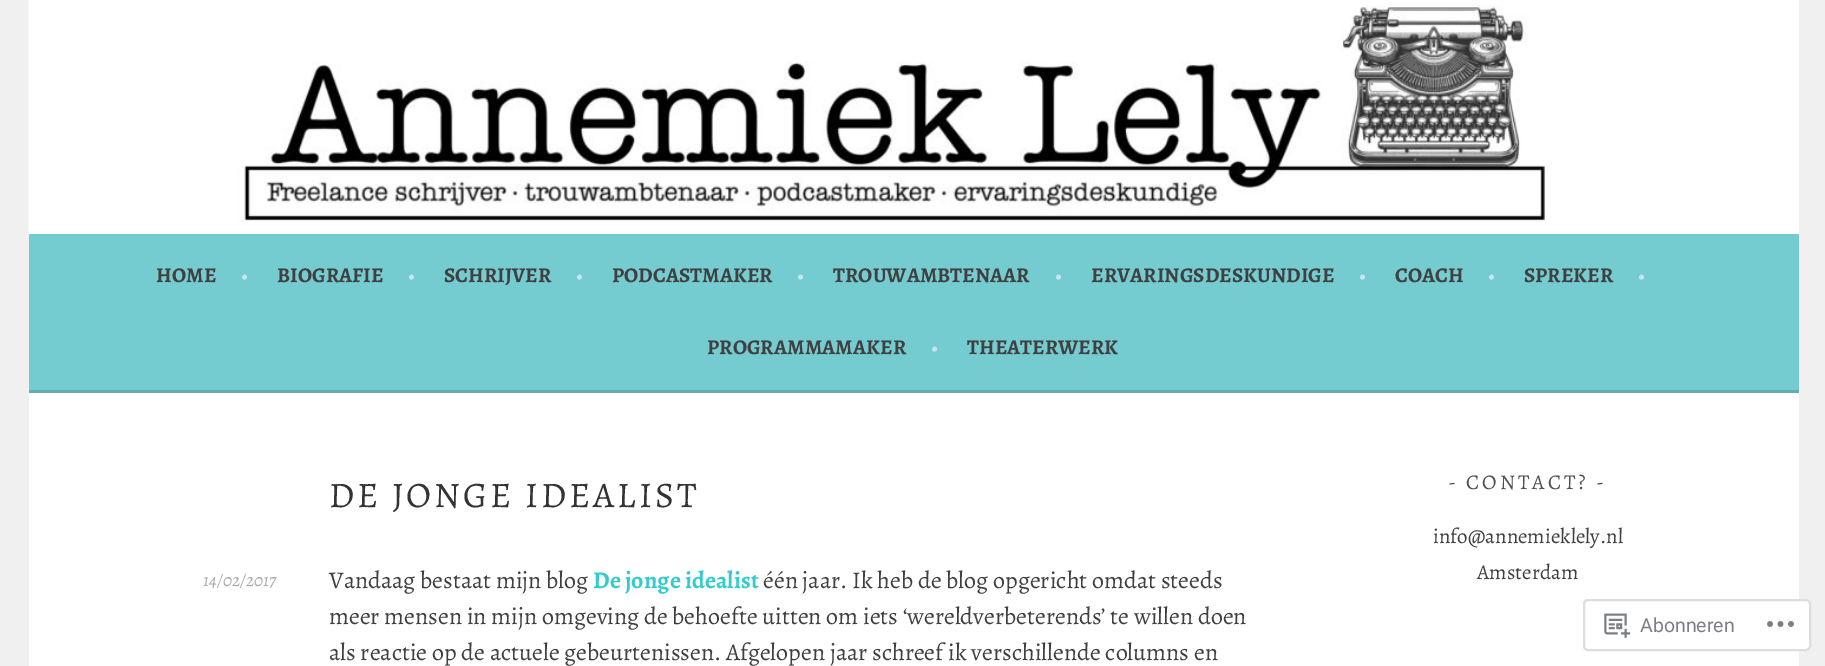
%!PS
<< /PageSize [1825 666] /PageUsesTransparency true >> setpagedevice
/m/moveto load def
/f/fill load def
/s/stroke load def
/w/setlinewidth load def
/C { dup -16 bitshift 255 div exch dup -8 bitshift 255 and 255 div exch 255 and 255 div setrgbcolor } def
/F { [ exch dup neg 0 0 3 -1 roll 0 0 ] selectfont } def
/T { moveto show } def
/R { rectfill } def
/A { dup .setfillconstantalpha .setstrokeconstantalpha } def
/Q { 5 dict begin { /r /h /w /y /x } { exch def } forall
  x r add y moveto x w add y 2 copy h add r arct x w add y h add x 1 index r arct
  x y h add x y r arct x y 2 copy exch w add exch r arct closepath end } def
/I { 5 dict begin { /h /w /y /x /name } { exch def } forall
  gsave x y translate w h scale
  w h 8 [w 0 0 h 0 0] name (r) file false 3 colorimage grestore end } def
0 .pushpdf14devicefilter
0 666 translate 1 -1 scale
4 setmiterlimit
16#F0F0F0 C
0 0 1825 666 R
16#FFFFFF C
1549 0 250 234 R
(1.rgb) 28 0 1521 234 I
16#74CCD1 C
29 234 1770 156 R
16#63ADB2 C
29 390 1770 3 R
/Alegreya-Bold 21 F
16#404040 C
(HOME) 156 282 T
16#C1E8EA C
(•) 241 282 T
16#404040 C
(BIOGRAFIE) 277 282 T
16#C1E8EA C
(•) 408 282 T
16#404040 C
(SCHRIJVER) 444 282 T
16#C1E8EA C
(•) 576 282 T
16#404040 C
(PODCASTMAKER) 612 282 T
16#C1E8EA C
(•) 797 282 T
16#404040 C
(TROUWAMBTENAAR) 833 282 T
16#C1E8EA C
(•) 1055 282 T
16#404040 C
(ERVARINGSDESKUNDIGE) 1091 282 T
16#C1E8EA C
(•) 1359 282 T
16#404040 C
(COACH) 1395 282 T
16#C1E8EA C
(•) 1488 282 T
16#404040 C
(SPREKER) 1524 282 T
16#C1E8EA C
(•) 1638 282 T
16#404040 C
(PROGRAMMAMAKER) 707 354 T
16#C1E8EA C
(•) 931 354 T
16#404040 C
(THEATERWERK) 967 354 T
16#FFFFFF C
29 393 1770 273 R
/Alegreya-Regular 36 F
16#333333 C
329 507 m 3 0 (DE JONGE IDEALIST) ashow
/Alegreya-Italic 18 F
16#AAAAAA C
(14/02/2017) 203 586 T
/Alegreya-Regular 24 F
16#404040 C
(Vandaag bestaat mijn blog) 329 588 T
/Alegreya-Bold 24 F
16#33CCCC C
(De jonge idealist) 593 588 T
/Alegreya-Regular 24 F
16#404040 C
(één jaar. Ik heb de blog opgericht omdat steeds) 763 588 T
(meer mensen in mijn omgeving de behoefte uitten om iets ‘wereldverbeterends’ te willen doen) 329 624 T
(als reactie op de actuele gebeurtenissen. Afgelopen jaar schreef ik verschillende columns en) 329 660 T
/Alegreya-Regular 21 F
16#4F4F4F C
1448 489 m 3 0 (- CONTACT? -) ashow
16#404040 C
(info@annemieklely.nl) 1433 543 T
(Amsterdam) 1477 579 T
0.98 A
16#FFFFFF C
1583 599 228 52 5 Q f
16#DCDCDE C
2 w
1584 600 226 50 4 Q s
1 A
(2.rgb) 1604 613 27 25 I
/Roboto-Regular 19.5 F
16#7B7F85 C
(Abonneren) 1640 632 T
(3.rgb) 1767 621 27 6 I
.poppdf14devicefilter showpage
